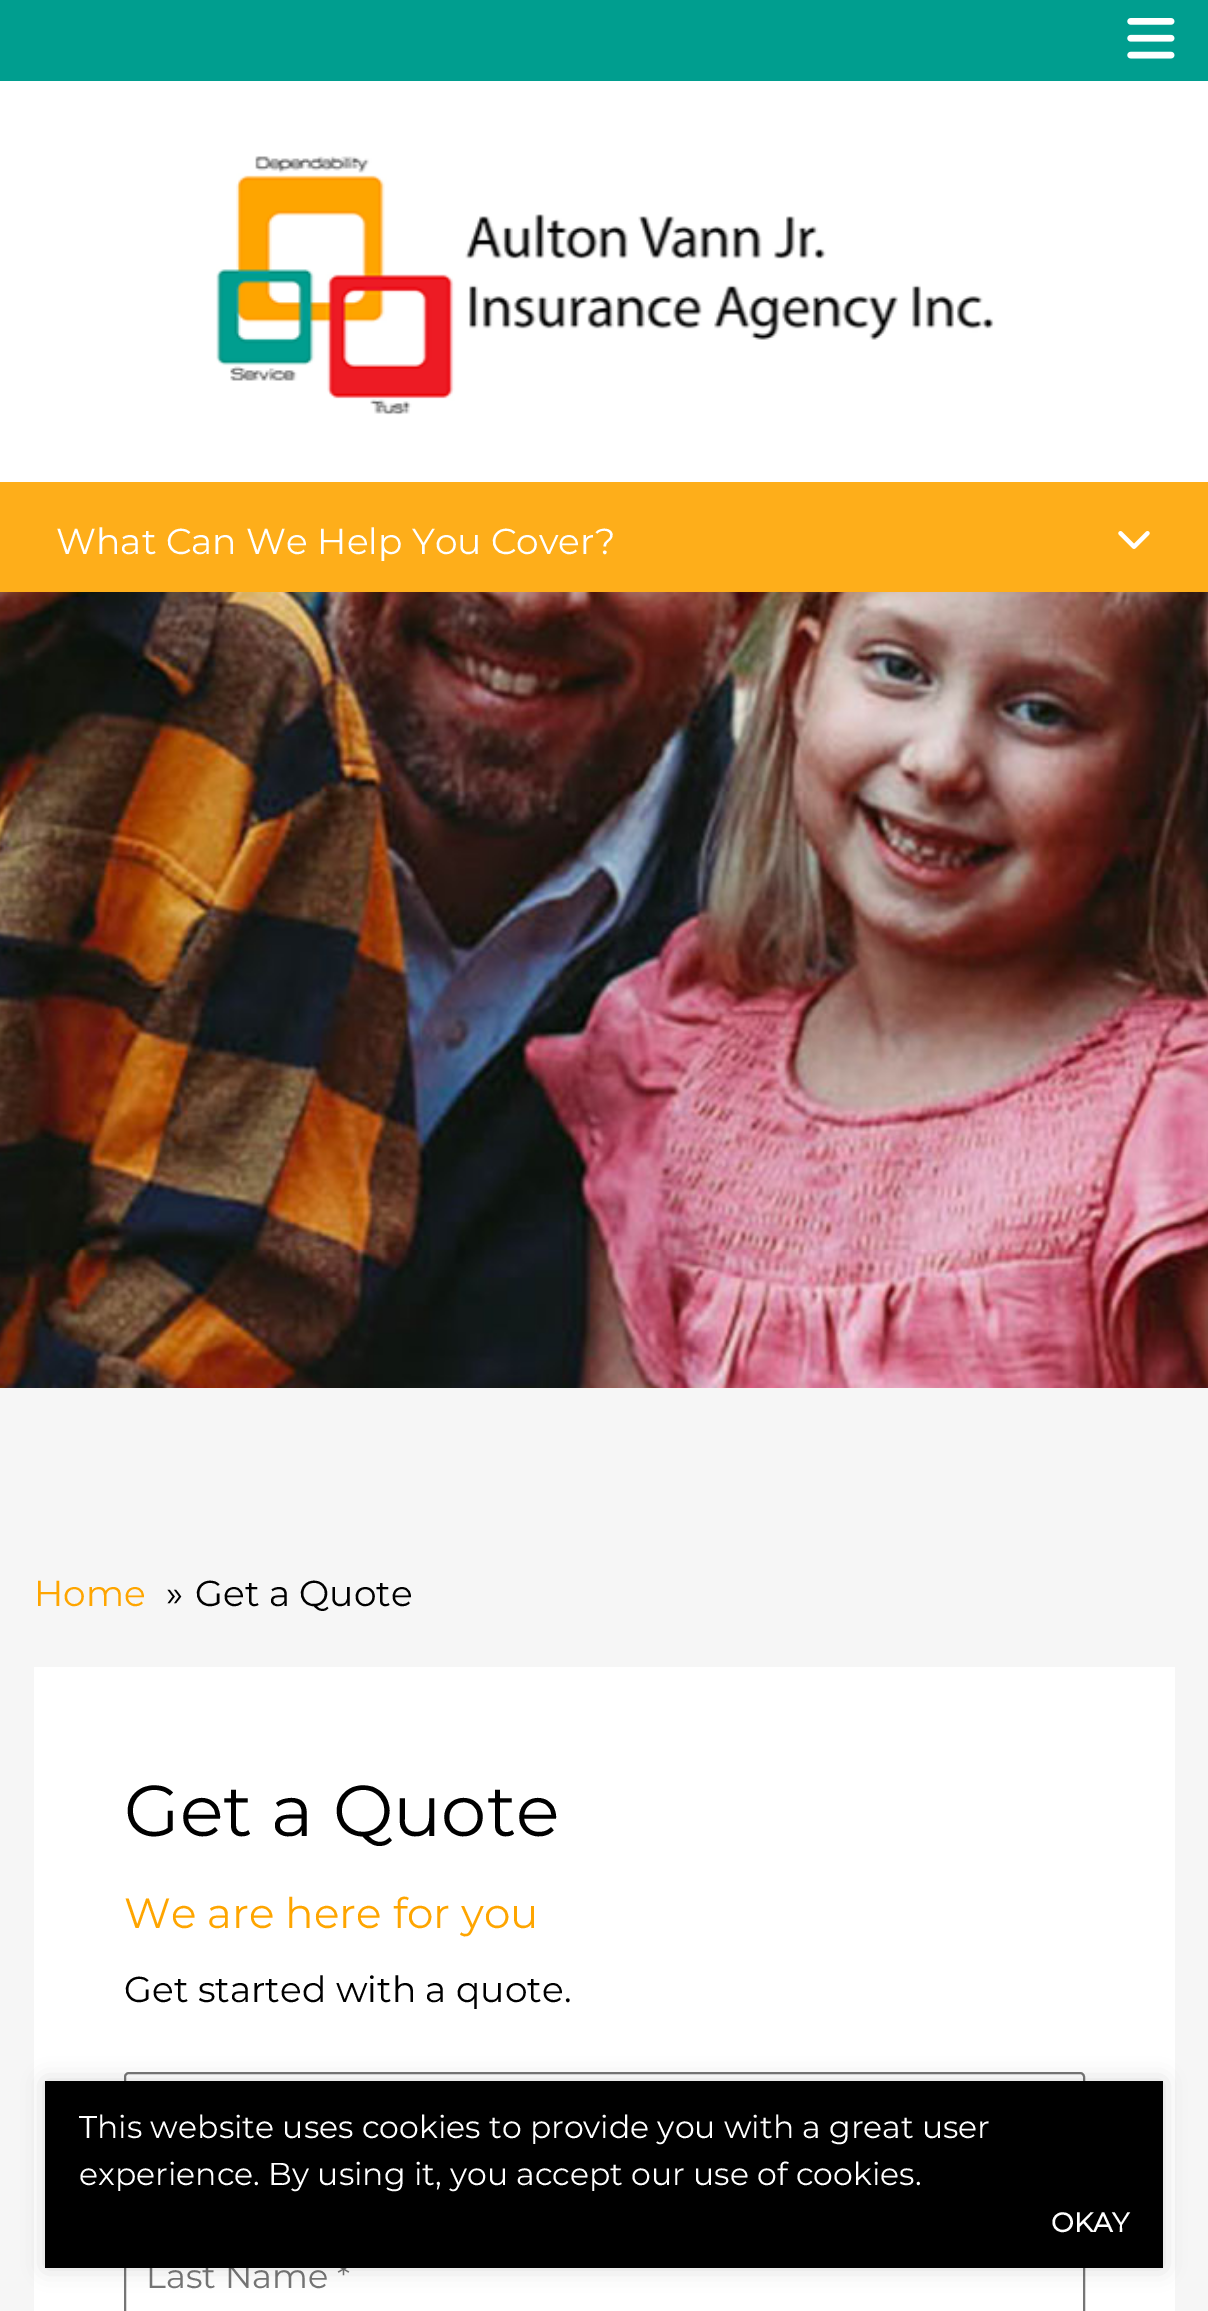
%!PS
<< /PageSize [1208 2311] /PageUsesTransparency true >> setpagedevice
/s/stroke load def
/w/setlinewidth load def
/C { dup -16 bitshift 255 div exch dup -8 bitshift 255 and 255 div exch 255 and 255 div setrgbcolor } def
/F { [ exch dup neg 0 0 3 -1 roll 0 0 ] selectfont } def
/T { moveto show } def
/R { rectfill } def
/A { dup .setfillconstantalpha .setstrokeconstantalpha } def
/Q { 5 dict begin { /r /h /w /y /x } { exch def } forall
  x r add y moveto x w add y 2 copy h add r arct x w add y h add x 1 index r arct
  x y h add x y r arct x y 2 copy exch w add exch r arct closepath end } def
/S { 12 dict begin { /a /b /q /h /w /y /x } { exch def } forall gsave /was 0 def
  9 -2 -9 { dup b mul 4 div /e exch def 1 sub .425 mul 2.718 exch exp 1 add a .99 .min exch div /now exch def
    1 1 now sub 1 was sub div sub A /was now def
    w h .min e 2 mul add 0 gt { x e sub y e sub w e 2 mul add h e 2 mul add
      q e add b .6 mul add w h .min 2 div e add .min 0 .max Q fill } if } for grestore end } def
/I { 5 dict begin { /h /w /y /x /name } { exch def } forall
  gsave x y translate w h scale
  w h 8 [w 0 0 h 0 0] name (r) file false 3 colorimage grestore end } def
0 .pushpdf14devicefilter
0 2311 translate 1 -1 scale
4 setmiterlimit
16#FFFFFF C
0 0 1208 2311 R
16#009E8F C
0 0 1208 81 R
(1.rgb) 1127 18 48 41 I
(2.rgb) 216 156 779 259 I
16#FEAE1A C
0 482 1208 110 R
/Montserrat-Thin 36 F
16#FFFFFF C
(What Can We Help You Cover?) 56 554 T
(3.rgb) 1118 531 32 18 I
(4.rgb) 0 592 1208 796 I
16#F6F6F6 C
0 1388 1208 923 R
16#FEA500 C
(Home) 34 1606 T
16#000000 C
(») 166 1606 T
(Get a Quote) 195 1606 T
16#FFFFFF C
34 1667 1141 644 R
/Montserrat-Thin 72 F
16#000000 C
(Get a Quote) 124 1836 T
/Montserrat-Thin 42.1 F
16#FEA500 C
(We are here for you) 124 1928 T
/Montserrat-Thin 36 F
16#000000 C
(Get started with a quote.) 124 2002 T
16#767676 C
2 w
125 2073 959 111 4 Q s
125 2222 959 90 rectstroke
/Montserrat-Thin 33.75 F
16#757575 C
(Last Name *) 146 2288 T
16#000000 C
45 2081 1118 187 0 11 .15 S
45 2081 1118 187 R
/Montserrat-Thin 31.5 F
16#FFFFFF C
(This website uses cookies to provide you with a great user) 79 2138 T
(experience. By using it, you accept our use of cookies.) 79 2185 T
/Montserrat-Bold 27 F
(OKAY) 1051 2232 T
.poppdf14devicefilter showpage
